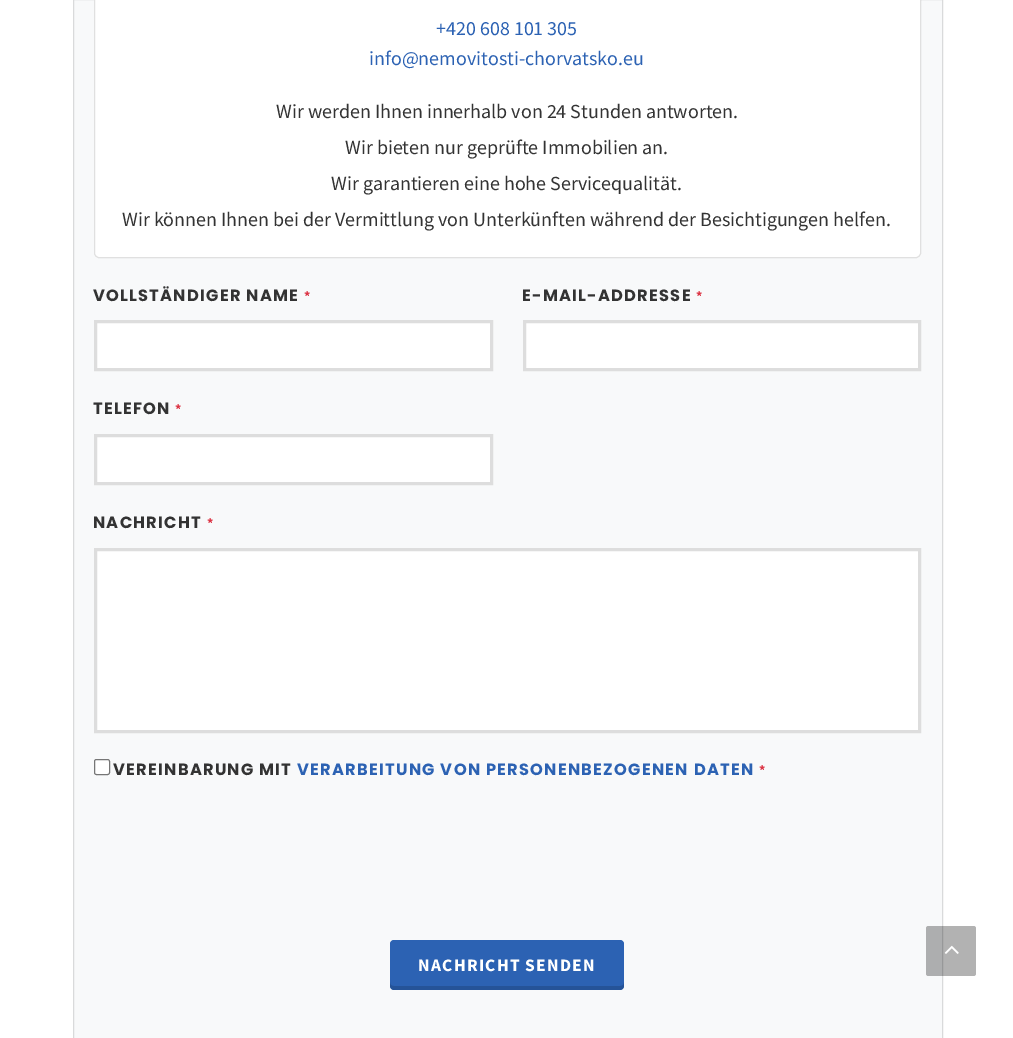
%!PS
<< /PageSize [1013 1038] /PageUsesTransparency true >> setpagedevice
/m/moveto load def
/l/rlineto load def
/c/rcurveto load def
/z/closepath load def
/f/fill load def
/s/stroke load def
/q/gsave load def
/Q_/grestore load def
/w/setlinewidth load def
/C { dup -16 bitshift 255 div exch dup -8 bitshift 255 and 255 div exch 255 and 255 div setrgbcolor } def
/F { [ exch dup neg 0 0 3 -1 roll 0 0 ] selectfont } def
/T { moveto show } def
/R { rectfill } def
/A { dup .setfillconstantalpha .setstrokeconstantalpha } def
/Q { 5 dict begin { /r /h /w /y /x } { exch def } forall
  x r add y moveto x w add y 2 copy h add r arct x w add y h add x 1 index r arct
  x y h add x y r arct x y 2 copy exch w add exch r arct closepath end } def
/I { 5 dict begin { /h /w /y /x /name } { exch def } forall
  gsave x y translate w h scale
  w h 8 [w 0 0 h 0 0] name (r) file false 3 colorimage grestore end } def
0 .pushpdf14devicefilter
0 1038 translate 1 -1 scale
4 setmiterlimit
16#FFFFFF C
0 0 1013 1038 R
16#F8F9FA C
73.5 -.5 m 869 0 l 0 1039 l -869 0 l z q f Q_
16#D9DADB C
s
16#FFFFFF C
94 -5 827 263 5 Q f
0.12 A
16#000000 C
94.5 -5.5 826 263 4.5 Q s
/SourceSansPro-Regular 20 F
1 A
16#2C62B3 C
(+420 608 101 305) 436 35 T
(info@nemovitosti-chorvatsko.eu) 369 65 T
16#333333 C
(Wir werden Ihnen innerhalb von 24 Stunden antworten.) 276 118 T
(Wir bieten nur geprüfte Immobilien an.) 345 154 T
(Wir garantieren eine hohe Servicequalität.) 331 190 T
(Wir können Ihnen bei der Vermittlung von Unterkünften während der Besichtigungen helfen.) 122 226 T
/Poppins-Bold 16.25 F
93 301 m 1.25 0 (VOLLSTÄNDIGER NAME) ashow
/SourceSansPro-Bold 14 F
16#DC3545 C
304 301 m 1.25 0 (*) ashow
16#FFFFFF C
95.5 321.5 m 396 0 l 0 48 l -396 0 l z q f Q_
16#DDDDDD C
3 w
s
/Poppins-Bold 16.25 F
16#333333 C
522 301 m 1.25 0 (E-MAIL-ADDRESSE) ashow
/SourceSansPro-Bold 14 F
16#DC3545 C
696 301 m 1.25 0 (*) ashow
16#FFFFFF C
524.5 321.5 m 395 0 l 0 48 l -395 0 l z q f Q_
16#DDDDDD C
s
/Poppins-Bold 16.25 F
16#333333 C
93 414 m 1.25 0 (TELEFON) ashow
/SourceSansPro-Bold 14 F
16#DC3545 C
175 414 m 1.25 0 (*) ashow
16#FFFFFF C
95.5 435.5 m 396 0 l 0 48 l -396 0 l z q f Q_
16#DDDDDD C
s
/Poppins-Bold 16.25 F
16#333333 C
93 528 m 1.25 0 (NACHRICHT) ashow
/SourceSansPro-Bold 14 F
16#DC3545 C
207 528 m 1.25 0 (*) ashow
16#FFFFFF C
95.5 549.5 m 824 0 l 0 182 l -824 0 l z q f Q_
16#DDDDDD C
s
16#FFFFFF C
94.5 759.5 15 15 2 Q q f Q_
16#767676 C
1 w
s
/Poppins-Bold 16.25 F
16#333333 C
113 775 m 1.25 0 (VEREINBARUNG MIT) ashow
16#2C62B3 C
297 775 m 1.25 0 (VERARBEITUNG VON PERSONENBEZOGENEN DATEN) ashow
/SourceSansPro-Bold 14 F
16#DC3545 C
759 775 m 1.25 0 (*) ashow
16#2C62B3 C
390 940 234 50 4 Q f
0.15 A
16#000000 C
390 982 m 0 4 l 0 2 2 4 4 4 c 226 0 l 2 0 4 -2 4 -4 c 0 -4 l 0 3 -2 4 -4 4 c -226 0 l -2 0 -4 -1 -4 -4 c z f
/SourceSansPro-Bold 17.5 F
1 A
16#FFFFFF C
418 971 m 1.25 0 (NACHRICHT SENDEN) ashow
0.3 A
16#000000 C
926 926 50 50 2.5 Q f
1 A
(1.rgb) 944 945 15 9 I
.poppdf14devicefilter showpage
